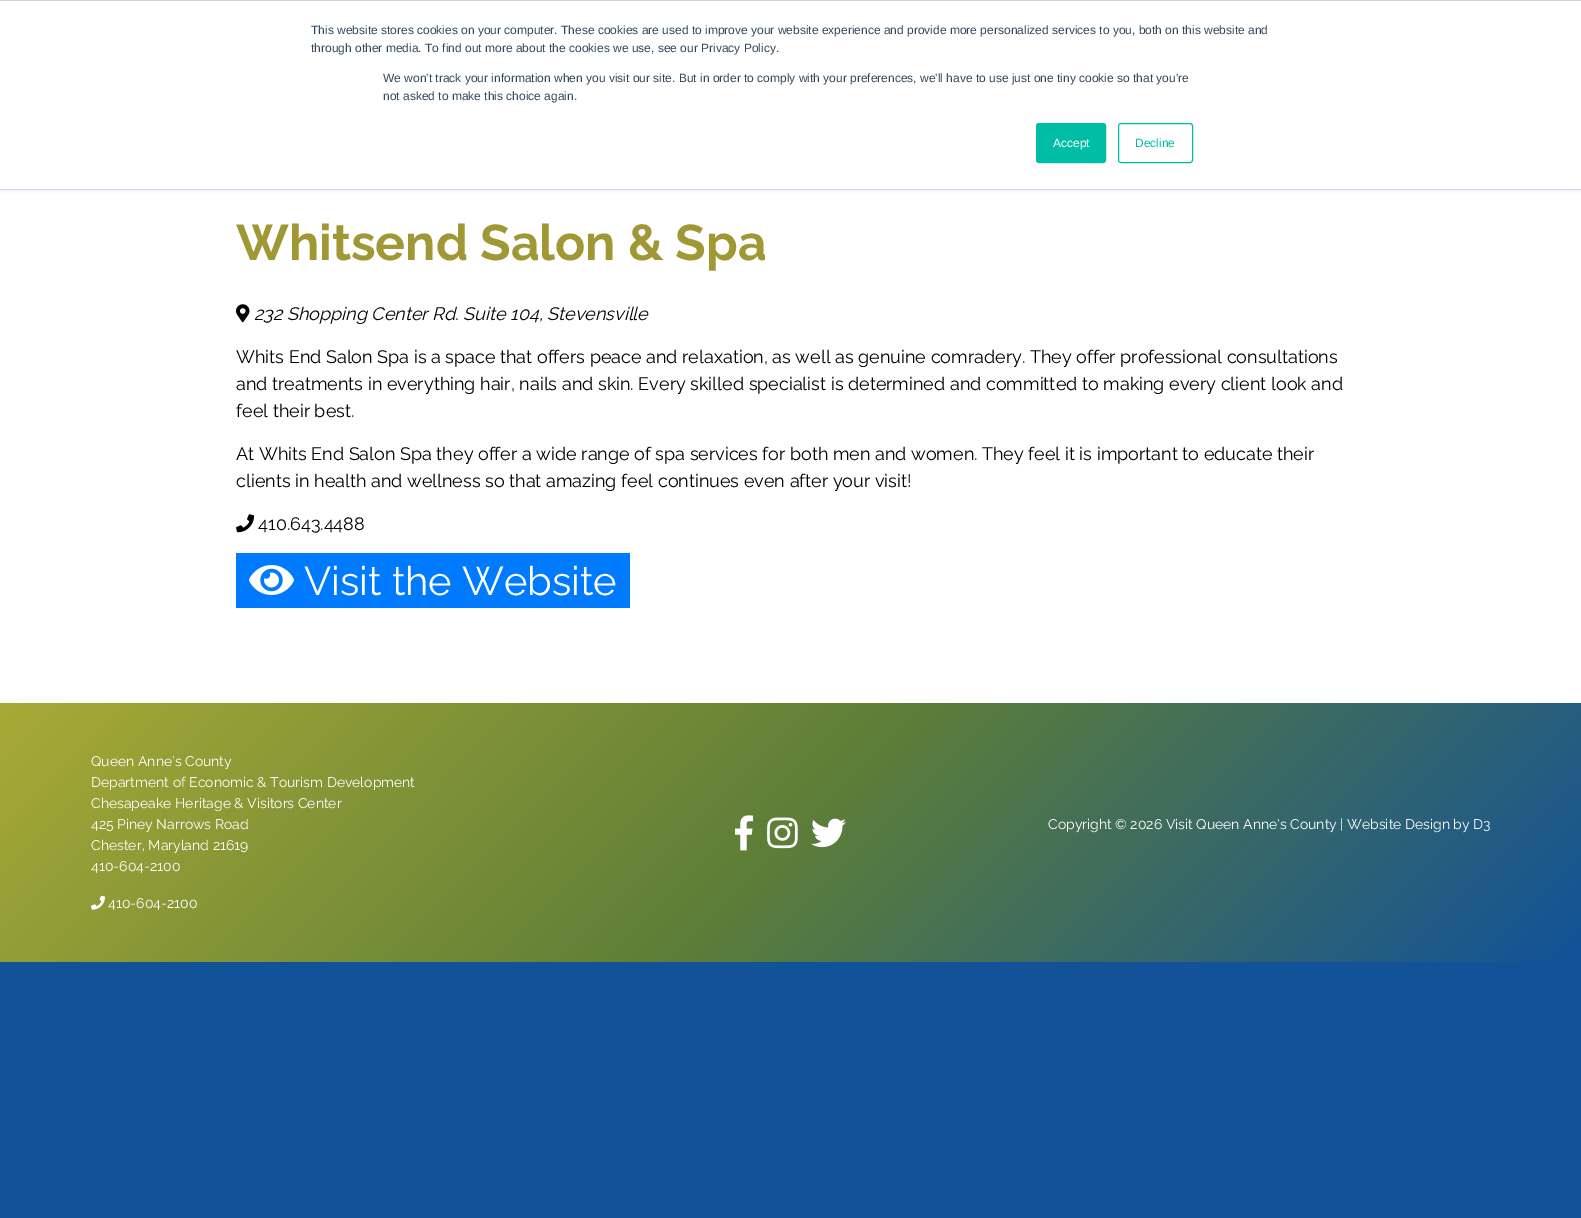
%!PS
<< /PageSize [1581 1218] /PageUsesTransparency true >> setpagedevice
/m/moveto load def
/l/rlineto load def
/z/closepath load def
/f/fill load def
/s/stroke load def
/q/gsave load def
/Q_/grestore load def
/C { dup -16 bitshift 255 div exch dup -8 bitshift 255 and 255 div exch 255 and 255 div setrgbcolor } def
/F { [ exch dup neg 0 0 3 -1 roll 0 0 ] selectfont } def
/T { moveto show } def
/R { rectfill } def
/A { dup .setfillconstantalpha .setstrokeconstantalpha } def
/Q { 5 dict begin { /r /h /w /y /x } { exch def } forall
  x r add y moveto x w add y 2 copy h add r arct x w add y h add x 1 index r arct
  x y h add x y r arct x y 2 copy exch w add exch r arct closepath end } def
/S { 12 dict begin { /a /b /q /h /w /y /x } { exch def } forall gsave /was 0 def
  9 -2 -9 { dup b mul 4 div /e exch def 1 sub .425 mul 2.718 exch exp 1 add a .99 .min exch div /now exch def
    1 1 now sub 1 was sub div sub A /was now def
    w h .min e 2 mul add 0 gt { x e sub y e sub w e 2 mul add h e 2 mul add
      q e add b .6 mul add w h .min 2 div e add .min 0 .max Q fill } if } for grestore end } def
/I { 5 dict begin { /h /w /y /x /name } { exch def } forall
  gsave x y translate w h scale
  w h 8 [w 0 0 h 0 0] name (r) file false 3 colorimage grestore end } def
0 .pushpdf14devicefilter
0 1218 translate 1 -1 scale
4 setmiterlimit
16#115299 C
0 0 1581 1218 R
16#FFFFFF C
0 190 1581 513 R
16#EAF0F6 C
0 1 1581 190 0 2.5 1 S
16#FFFFFF C
0 1 1581 188 R
16#CBD6E2 C
0 0 1581 1 R
0 189 1581 1 R
/LiberationSans-Regular 12 F
16#33475B C
(This website stores cookies on your computer. These cookies are used to improve your website experience and provide more personalized services to you, both on this website and) 311 34 T
(through other media. To find out more about the cookies we use, see our Privacy Policy.) 311 52 T
(We won't track your information when you visit our site. But in order to comply with your preferences, we'll have to use just one tiny cookie so that you're) 383 82 T
(not asked to make this choice again.) 383 100 T
16#00BDA5 C
1036.5 123.5 69 39 2.5 Q q f Q_
s
16#FFFFFF C
(Accept) 1053 147 T
16#00BDA5 C
1118.5 123.5 74 39 2.5 Q s
(Decline) 1135 147 T
/Raleway-Bold 50 F
16#9F9835 C
(Whitsend Salon & Spa) 236 260 T
(1.rgb) 236 304 14 19 I
/Raleway-Italic 18 F
16#000000 C
(232 Shopping Center Rd. Suite 104, Stevensville) 254 320 T
/Raleway-Regular 18 F
(Whits End Salon Spa is a space that offers peace and relaxation, as well as genuine comradery. They offer professional consultations) 236 363 T
(and treatments in everything hair, nails and skin. Every skilled specialist is determined and committed to making every client look and) 236 390 T
(feel their best.) 236 417 T
(At Whits End Salon Spa they offer a wide range of spa services for both men and women. They feel it is important to educate their) 236 460 T
(clients in health and wellness so that amazing feel continues even after your visit!) 236 487 T
(2.rgb) 236 514 18 19 I
(410.643.4488) 258 530 T
16#007BFF C
236 553 394 55 R
(3.rgb) 249 565 45 30 I
/Raleway-Regular 40 F
16#FFFFFF C
(Visit the Website) 304 595 T
q 0 703 m 1581 0 l 0 259 l -1581 0 l z clip newpath
<< /ShadingType 2 /ColorSpace /DeviceRGB /Coords [330 373 1251 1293] /Extend [true true] /Function << /FunctionType 3 /Domain [0 1] /Functions [<< /FunctionType 2 /Domain [0 1] /C0 [.659 .667 .212] /C1 [.365 .494 .22] /N 1 >> << /FunctionType 2 /Domain [0 1] /C0 [.365 .494 .22] /C1 [.067 .322 .6] /N 1 >>] /Bounds [.5] /Encode [0 1 0 1] >> >> shfill Q_
/Raleway-Regular 14 F
(Queen Anne’s County) 91 766 T
(Department of Economic & Tourism Development) 91 787 T
(Chesapeake Heritage & Visitors Center) 91 808 T
(425 Piney Narrows Road) 91 829 T
(Chester, Maryland 21619) 91 850 T
(410-604-2100) 91 871 T
(4.rgb) 91 895 14 15 I
(410-604-2100) 108 908 T
(5.rgb) 735 815 19 36 I
(6.rgb) 767 817 31 32 I
(7.rgb) 811 818 35 30 I
(Copyright © 2026 Visit Queen Anne's County | Website Design by D3) 1048 829 T
.poppdf14devicefilter showpage
